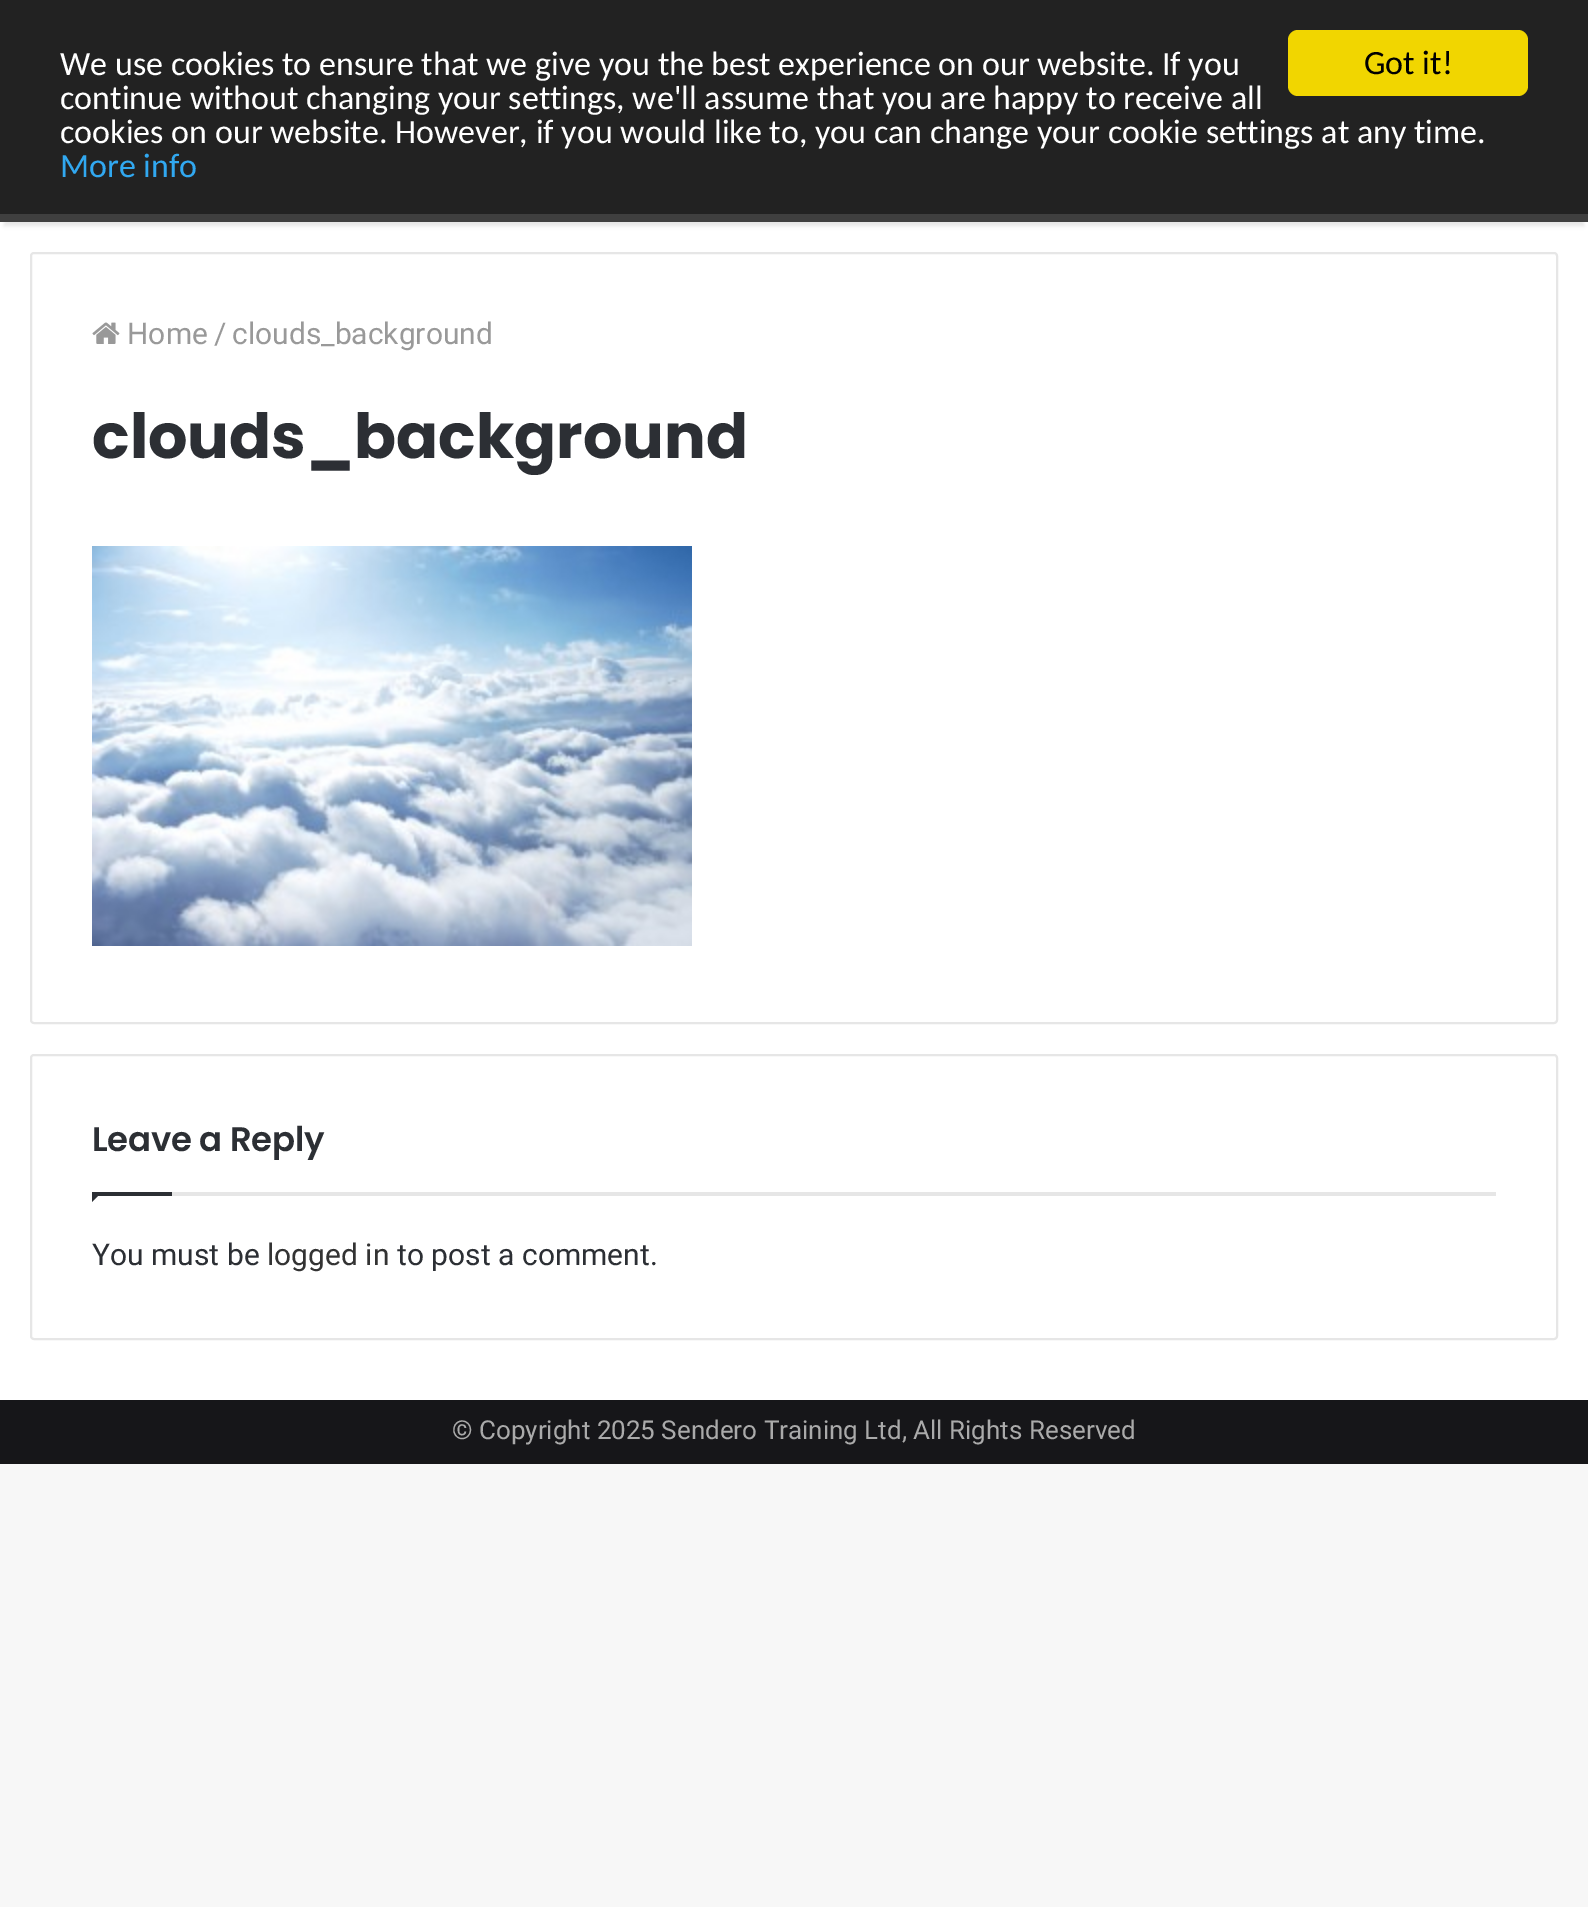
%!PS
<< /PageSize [1588 1907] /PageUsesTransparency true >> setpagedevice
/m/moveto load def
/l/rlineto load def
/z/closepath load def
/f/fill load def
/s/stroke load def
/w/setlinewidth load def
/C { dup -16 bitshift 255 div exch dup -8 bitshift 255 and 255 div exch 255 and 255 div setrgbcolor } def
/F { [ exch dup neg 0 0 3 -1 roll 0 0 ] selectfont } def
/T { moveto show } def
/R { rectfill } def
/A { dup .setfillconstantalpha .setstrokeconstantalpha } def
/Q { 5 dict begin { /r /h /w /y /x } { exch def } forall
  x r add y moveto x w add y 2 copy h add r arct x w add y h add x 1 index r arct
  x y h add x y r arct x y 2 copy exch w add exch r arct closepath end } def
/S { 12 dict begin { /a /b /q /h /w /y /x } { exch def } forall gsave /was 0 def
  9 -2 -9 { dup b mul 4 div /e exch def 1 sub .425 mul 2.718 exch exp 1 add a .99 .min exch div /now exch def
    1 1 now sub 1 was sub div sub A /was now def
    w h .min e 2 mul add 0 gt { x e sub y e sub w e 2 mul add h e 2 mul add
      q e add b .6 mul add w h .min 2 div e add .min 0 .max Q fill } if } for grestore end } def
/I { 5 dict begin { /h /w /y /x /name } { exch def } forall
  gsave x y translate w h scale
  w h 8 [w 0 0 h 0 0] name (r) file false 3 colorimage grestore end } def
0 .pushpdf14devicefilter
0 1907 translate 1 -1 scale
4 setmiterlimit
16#F7F7F7 C
0 0 1588 1907 R
16#FFFFFF C
0 222 1588 1178 R
16#000000 C
4 144 1580 82 0 2 .1 S
16#222222 C
0 0 1588 214 R
16#F1D600 C
1288 30 240 66 10 Q f
/Carlito-Regular 34 F
16#000000 C
(Got it!) 1364 74 T
16#FFFFFF C
(We use cookies to ensure that we give you the best experience on our website. If you) 60 75 T
(continue without changing your settings, we'll assume that you are happy to receive all) 60 109 T
(cookies on our website. However, if you would like to, you can change your cookie settings at any time.) 60 143 T
16#31A8F0 C
(More info) 60 177 T
16#3F3F3F C
0 214 1588 8 R
16#E6E6E6 C
2 w
31 253 1526 770 3 Q s
(1.rgb) 92 322 28 22 I
/Roboto-Regular 30 F
16#999999 C
(Home) 127 344 T
(/) 214 344 T
(clouds_background) 232 344 T
/Poppins-Bold 62 F
16#2C2F34 C
(clouds_background) 92 458 T
(2.rgb) 92 546 600 400 I
16#E6E6E6 C
31 1055 1526 284 3 Q s
172 1192 1324 4 R
/Poppins-SemiBold 34 F
16#2C2F34 C
92 1151 m -.3 0 (Leave a Reply) ashow
92 1192 m 10 0 l -10 10 l z f
92 1192 80 4 R
/Roboto-Regular 30 F
(You must be) 92 1265 T
16#333333 C
(logged in) 267 1265 T
16#2C2F34 C
(to post a comment.) 397 1265 T
16#161619 C
0 1400 1588 64 R
/Roboto-Regular 26 F
16#AAAAAA C
(© Copyright 2025 Sendero Training Ltd, All Rights Reserved) 452 1439 T
.poppdf14devicefilter showpage
